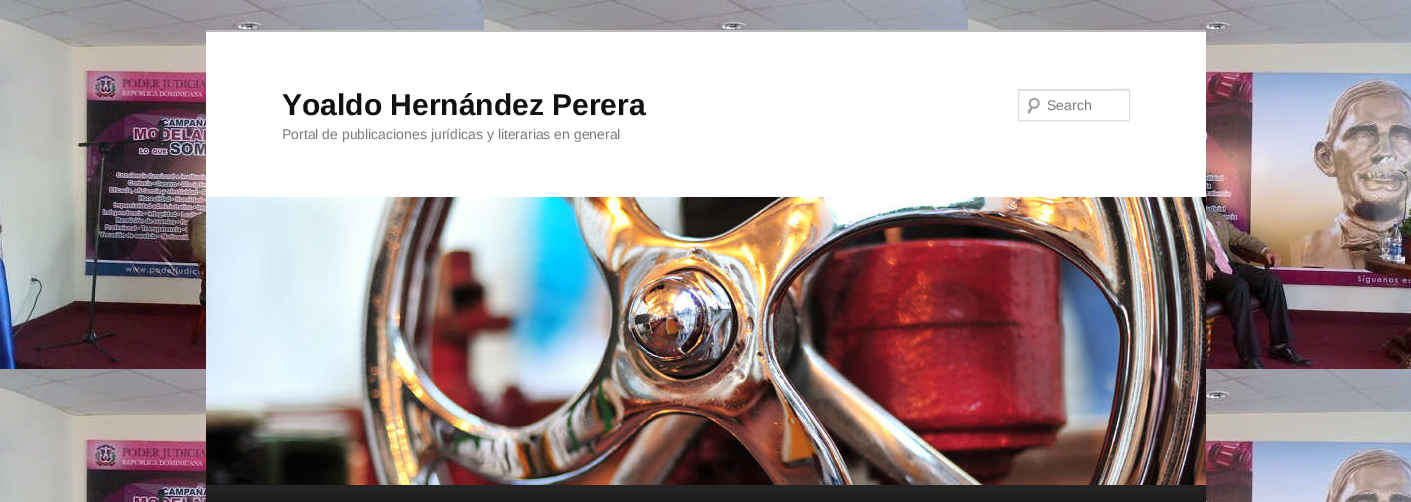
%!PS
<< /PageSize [1411 502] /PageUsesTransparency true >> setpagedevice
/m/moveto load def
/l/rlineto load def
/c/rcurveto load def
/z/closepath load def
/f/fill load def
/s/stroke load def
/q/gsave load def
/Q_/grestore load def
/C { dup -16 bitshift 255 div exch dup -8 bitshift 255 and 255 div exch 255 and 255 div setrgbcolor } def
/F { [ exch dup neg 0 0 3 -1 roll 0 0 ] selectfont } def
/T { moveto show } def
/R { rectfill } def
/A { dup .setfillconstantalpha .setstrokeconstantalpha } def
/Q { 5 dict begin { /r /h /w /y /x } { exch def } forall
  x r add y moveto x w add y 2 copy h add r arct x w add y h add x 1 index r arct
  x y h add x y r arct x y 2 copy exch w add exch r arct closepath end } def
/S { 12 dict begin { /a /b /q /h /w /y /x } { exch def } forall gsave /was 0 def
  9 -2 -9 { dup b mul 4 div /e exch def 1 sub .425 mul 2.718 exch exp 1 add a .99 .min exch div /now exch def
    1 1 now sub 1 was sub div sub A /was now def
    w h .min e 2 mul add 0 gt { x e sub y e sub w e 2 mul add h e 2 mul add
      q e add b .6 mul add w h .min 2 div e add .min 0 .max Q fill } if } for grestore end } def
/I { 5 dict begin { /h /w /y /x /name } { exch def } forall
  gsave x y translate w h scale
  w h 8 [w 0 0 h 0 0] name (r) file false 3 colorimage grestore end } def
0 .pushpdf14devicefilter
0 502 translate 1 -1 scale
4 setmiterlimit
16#FFFFFF C
0 0 1411 502 R
(1.rgb) 0 0 1411 502 I
206 32 1000 165 R
16#BBBBBB C
206 30 1000 2 R
/LiberationSans-Bold 30 F
16#111111 C
(Yoaldo Hernández Perera) 282 115 T
/LiberationSans-Regular 14 F
16#7A7A7A C
(Portal de publicaciones jurídicas y literarias en general) 282 139 T
(2.rgb) 1027 97 13 17 I
16#E6E6E6 C
1020 91 m 109 0 l 0 1 l 0 -7 -15 -2 -19 -2 c -90 0 l -1 2 l 0 -1 0 -1 1 -1 c z f
16#DDDDDD C
1018.5 89.5 111 31 1.5 Q s
16#7A7A7A C
(Search) 1047 110 T
16#000000 C
206 486 1000 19 0 1 .4 S
(3.rgb) 206 197 1000 288 I
q 206 485 m 1000 0 l 0 17 l -1000 0 l z clip newpath
<< /ShadingType 2 /ColorSpace /DeviceRGB /Coords [706 485 706 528] /Extend [true true] /Function << /FunctionType 2 /Domain [0 1] /C0 [.145 .145 .145] /C1 [.039 .039 .039] /N 1 >> >> shfill Q_
.poppdf14devicefilter showpage
